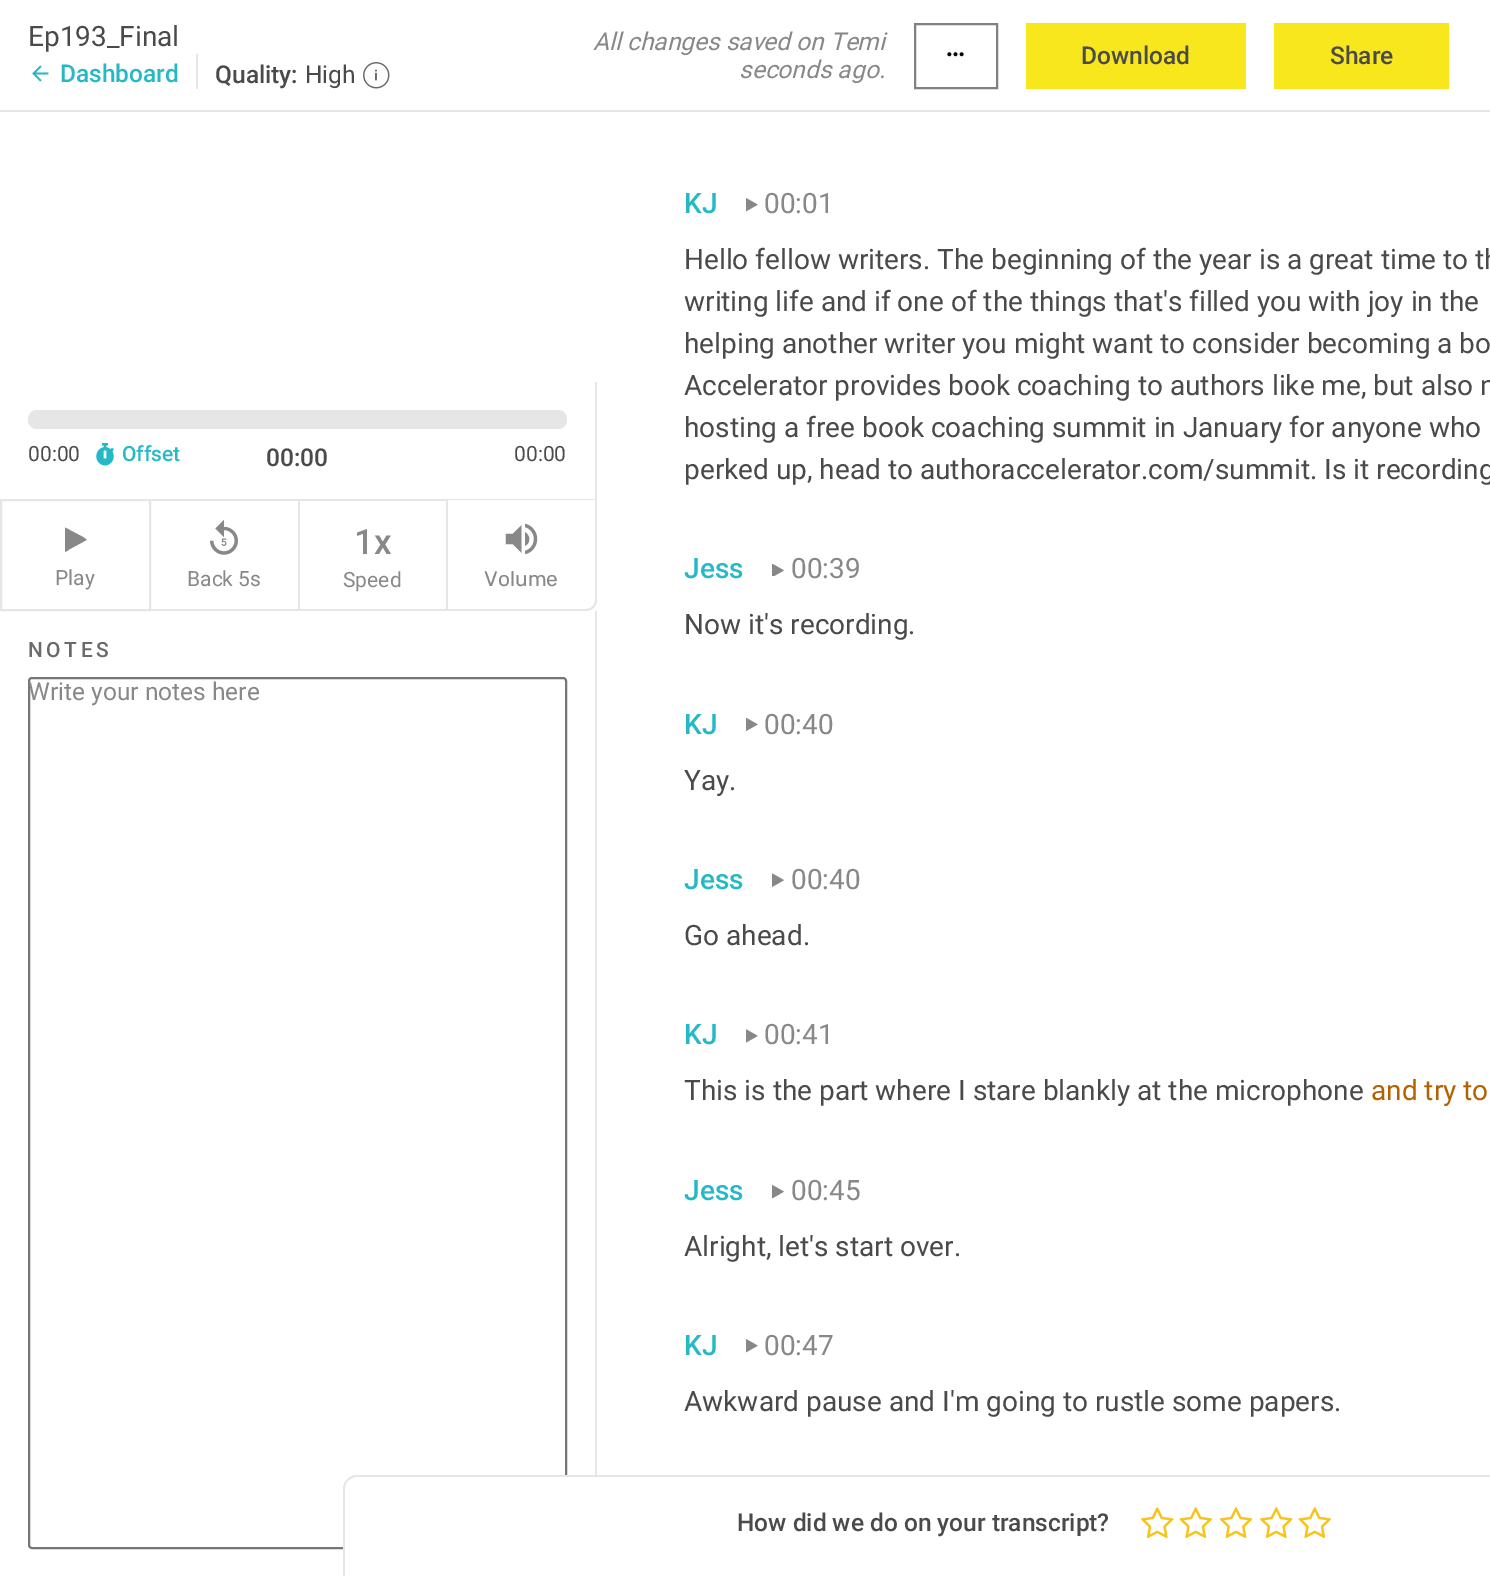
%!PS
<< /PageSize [1490 1576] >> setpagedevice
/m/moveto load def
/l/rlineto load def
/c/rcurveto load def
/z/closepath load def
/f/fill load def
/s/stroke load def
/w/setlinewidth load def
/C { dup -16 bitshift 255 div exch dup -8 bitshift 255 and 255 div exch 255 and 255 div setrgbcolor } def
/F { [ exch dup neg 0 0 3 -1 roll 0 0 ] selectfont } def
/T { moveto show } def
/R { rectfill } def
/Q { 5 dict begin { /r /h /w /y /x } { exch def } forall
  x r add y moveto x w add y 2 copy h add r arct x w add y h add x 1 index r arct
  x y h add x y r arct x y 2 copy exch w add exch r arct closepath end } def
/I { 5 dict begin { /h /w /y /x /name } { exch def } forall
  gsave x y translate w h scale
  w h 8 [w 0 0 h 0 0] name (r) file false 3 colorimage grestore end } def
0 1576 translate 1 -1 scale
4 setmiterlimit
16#FFFFFF C
0 0 1490 1576 R
16#E6E6E6 C
0 110 1490 2 R
/Roboto-Regular 28 F
16#4A4A4A C
(Ep193_Final) 28 46 T
(1.rgb) 32 65 17 17 I
/Roboto-Medium 24.5 F
16#25B9C8 C
(Dashboard) 60 82 T
16#E6E6E6 C
196 54 2 35 R
16#4A4A4A C
(Quality:) 215 83 T
/Roboto-Regular 24.5 F
(High) 305 83 T
(2.rgb) 363 62 27 27 I
/Roboto-Italic 24.5 F
16#888888 C
(All changes saved on Temi) 593 50 T
(seconds ago.) 739 78 T
16#808080 C
2 w
915 24 82 64 rectstroke
(3.rgb) 947 52 17 5 I
16#F8E71C C
1026 23 220 66 R
/Roboto-Medium 24.5 F
16#4A4A4A C
(Download) 1081 64 T
16#F8E71C C
1274 23 175 66 R
16#4A4A4A C
(Share) 1330 64 T
16#E6E6E6 C
595 382 2 117 R
28 410 539 19 9 Q f
/Roboto-Regular 21 F
16#4A4A4A C
(00:00) 28 461 T
(4.rgb) 96 443 18 23 I
/Roboto-Medium 21 F
16#25B9C8 C
(Offset) 122 461 T
/Roboto-Medium 24.5 F
16#4A4A4A C
(00:00) 266 466 T
/Roboto-Regular 21 F
(00:00) 514 461 T
16#E6E6E6 C
1 500 149 110 rectstroke
16#888888 C
86.5 540 m -17.5 9.5 l -.5 .5 -3.5 3 -4 2 c 0 -24 l 18 9.5 l 3.5 2.5 l z f
(Play) 55 585 T
16#E6E6E6 C
151 499 148 2 R
298 499 2 112 R
151 609 148 2 R
(5.rgb) 210 519 28 36 I
16#888888 C
(Back 5s) 187 586 T
16#E6E6E6 C
299 499 149 2 R
446 499 2 112 R
299 609 149 2 R
/Roboto-Medium 35 F
16#888888 C
(1x) 354 554 T
/Roboto-Regular 21 F
(Speed) 343 587 T
16#E6E6E6 C
448 499 m 149 0 l 0 101 l 0 6 -5 11 -11 11 c -138 0 l z 448 500 m 147 0 l 0 100 l 0 5 -4 9 -9 9 c -138 0 l z eofill
(6.rgb) 505 523 33 32 I
/Rubik-Regular 21 F
16#888888 C
(Volume) 484 586 T
16#E6E6E6 C
595 611 2 864 R
/Roboto-Medium 21 F
16#6A6A6A C
28 657 m 3.5 0 (NOTES) ashow
16#767676 C
29 678 537 870 3 Q s
/Roboto-Regular 24.5 F
16#888888 C
(Write your notes here) 28 700 T
/Roboto-Medium 28 F
16#25B9C8 C
(KJ) 684 213 T
(7.rgb) 746 198 12 14 I
/Roboto-Regular 28 F
16#888888 C
(00:01) 764 213 T
16#4A4A4A C
(Hello fellow writers. The beginning of the year is a great time to th) 684 269 T
(writing life and if one of the things that's filled you with joy in the) 684 311 T
(helping another writer you might want to consider becoming a bo) 684 353 T
(Accelerator provides book coaching to authors like me, but also n) 684 395 T
(hosting a free book coaching summit in January for anyone who) 684 437 T
(perked up, head to authoraccelerator.com/summit. Is it recording) 684 479 T
/Roboto-Medium 28 F
16#25B9C8 C
(Jess) 684 578 T
(8.rgb) 772 564 12 12 I
/Roboto-Regular 28 F
16#888888 C
(00:39) 791 578 T
16#4A4A4A C
(Now it's recording.) 684 634 T
/Roboto-Medium 28 F
16#25B9C8 C
(KJ) 684 734 T
(9.rgb) 746 718 12 14 I
/Roboto-Regular 28 F
16#888888 C
(00:40) 764 734 T
16#4A4A4A C
(Yay.) 684 790 T
/Roboto-Medium 28 F
16#25B9C8 C
(Jess) 684 889 T
(10.rgb) 772 873 12 14 I
/Roboto-Regular 28 F
16#888888 C
(00:40) 791 889 T
16#4A4A4A C
(Go ahead.) 684 945 T
/Roboto-Medium 28 F
16#25B9C8 C
(KJ) 684 1044 T
(11.rgb) 746 1029 12 14 I
/Roboto-Regular 28 F
16#888888 C
(00:41) 764 1044 T
16#4A4A4A C
(This is the part where I stare blankly at the microphone) 684 1100 T
16#B46100 C
(and try to) 1371 1100 T
/Roboto-Medium 28 F
16#25B9C8 C
(Jess) 684 1200 T
(12.rgb) 772 1185 12 14 I
/Roboto-Regular 28 F
16#888888 C
(00:45) 791 1200 T
16#4A4A4A C
(Alright, let's start over.) 684 1256 T
/Roboto-Medium 28 F
16#25B9C8 C
(KJ) 684 1355 T
(7.rgb) 746 1339 12 14 I
/Roboto-Regular 28 F
16#888888 C
(00:47) 764 1355 T
16#4A4A4A C
(Awkward pause and I'm going to rustle some papers.) 684 1411 T
16#FFFFFF C
357 1477 m 1133 0 l 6.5 0 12 5.5 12 12 c 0 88 l -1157 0 l 0 -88 l 0 -6.5 5.5 -12 12 -12 c z f
16#E6E6E6 C
357 1475 m 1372 0 l 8 0 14 7 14 14 c 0 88 l -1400 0 l 0 -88 l 0 -7 6 -14 14 -14 c z 357 1477 m 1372 0 l 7 0 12 5 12 12 c 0 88 l -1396 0 l 0 -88 l 0 -7 5 -12 12 -12 c z eofill
/Roboto-Medium 24.5 F
16#4A4A4A C
(How did we do on your transcript?) 737 1531 T
(13.rgb) 1141 1507 33 32 I
(14.rgb) 1179 1507 33 32 I
(15.rgb) 1219 1507 34 32 I
(13.rgb) 1260 1507 33 32 I
(14.rgb) 1298 1507 33 32 I
showpage
